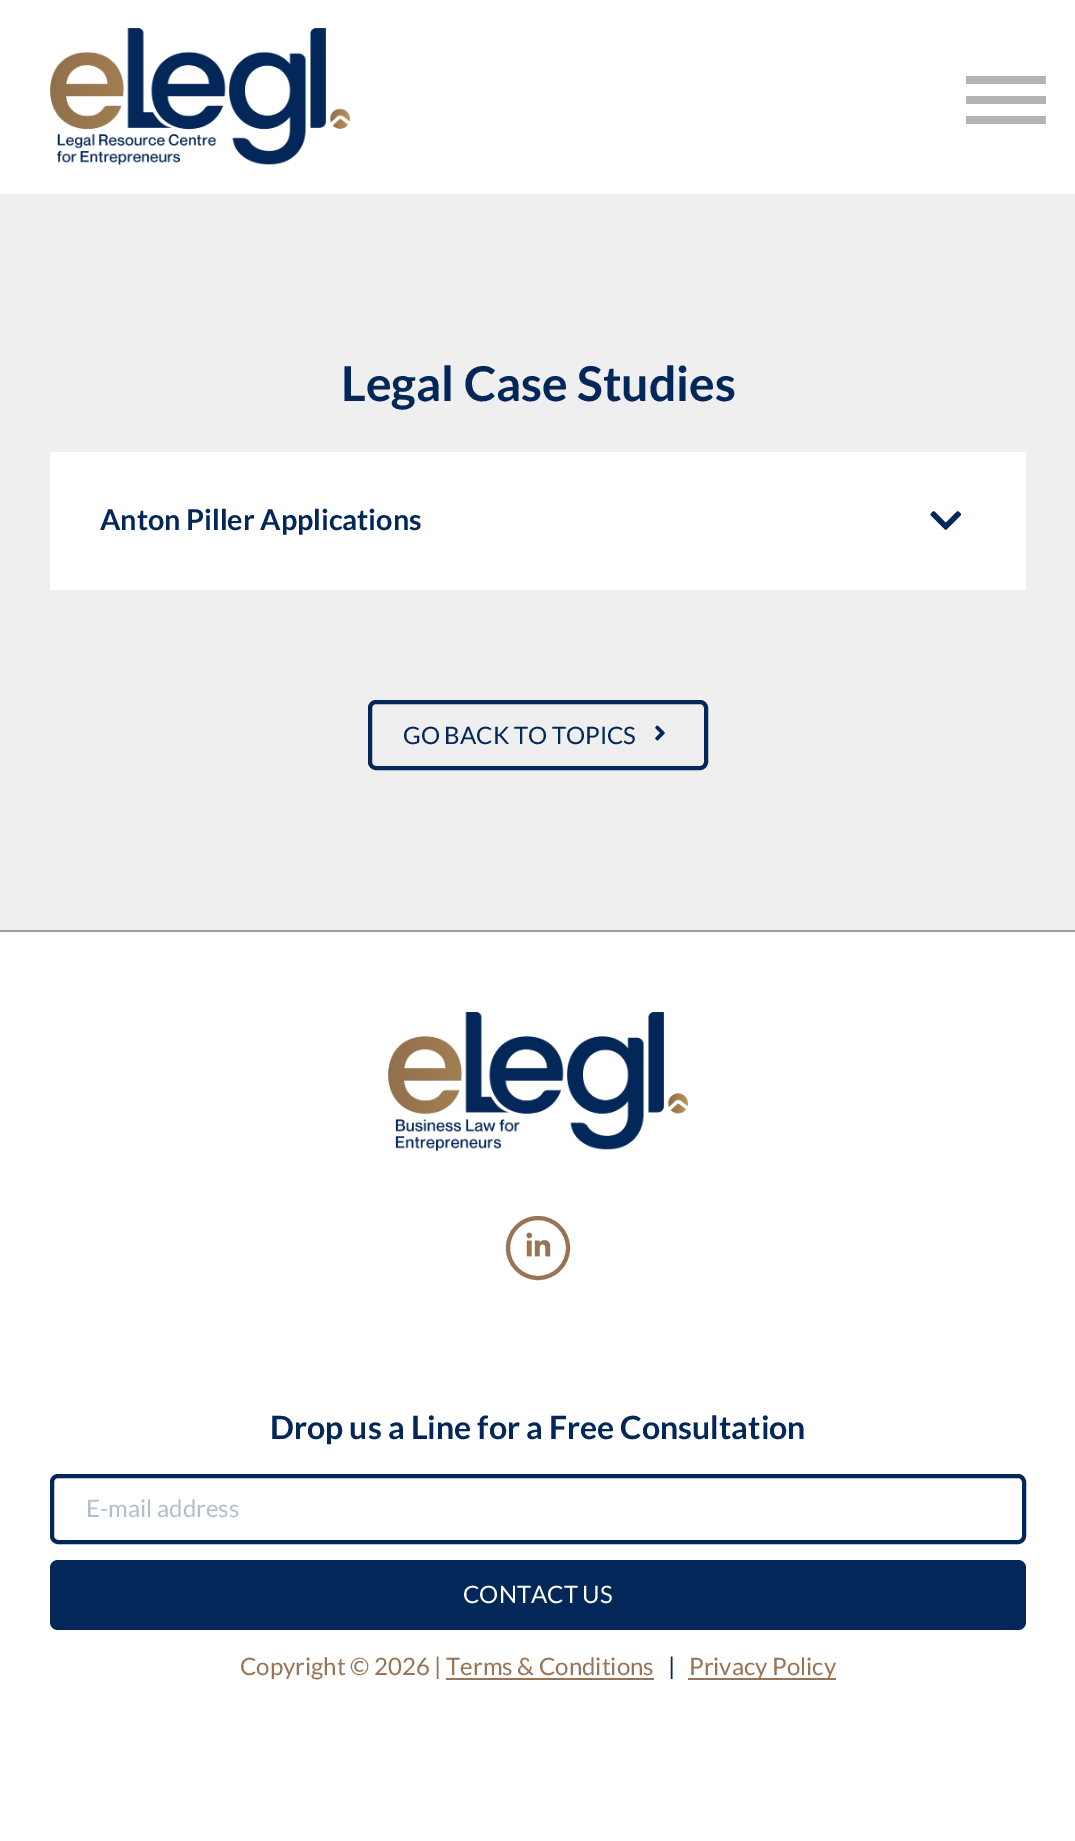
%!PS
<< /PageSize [1075 1841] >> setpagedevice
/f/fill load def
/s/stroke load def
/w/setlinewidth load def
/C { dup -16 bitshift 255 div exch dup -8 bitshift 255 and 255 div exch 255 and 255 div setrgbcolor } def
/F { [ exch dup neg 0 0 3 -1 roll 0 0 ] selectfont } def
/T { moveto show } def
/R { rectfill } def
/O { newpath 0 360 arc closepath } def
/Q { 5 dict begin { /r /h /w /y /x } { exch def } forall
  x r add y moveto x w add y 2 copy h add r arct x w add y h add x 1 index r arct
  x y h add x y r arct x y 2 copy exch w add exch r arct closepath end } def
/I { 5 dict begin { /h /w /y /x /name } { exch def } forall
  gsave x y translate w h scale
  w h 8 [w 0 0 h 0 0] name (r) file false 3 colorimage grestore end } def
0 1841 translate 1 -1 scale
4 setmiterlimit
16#FFFFFF C
0 0 1075 1841 R
(1.rgb) 50 28 300 138 I
16#B4B4B4 C
966 116 80 8 R
966 76 80 8 R
966 96 80 8 R
16#EFEFEF C
0 194 1075 736 R
/Lato-Bold 48 F
16#032758 C
(Legal Case Studies) 341 401 T
16#FFFFFF C
50 452 976 138 R
/Lato-Bold 28.75 F
16#032758 C
(Anton Piller Applications) 100 530 T
(2.rgb) 930 511 32 19 I
4 w
370 702 336 66 6 Q s
/Lato-Regular 24 F
(GO BACK TO TOPICS) 403 744 T
(3.rgb) 655 725 10 16 I
16#9E9E9E C
0 930 1075 2 R
(4.rgb) 388 1012 300 140 I
16#997355 C
538 1248 30 O s
(5.rgb) 526 1232 25 25 I
/Lato-Bold 32 F
16#032758 C
(Drop us a Line for a Free Consultation) 270 1439 T
52 1476 972 66 6 Q s
/Lato-Regular 24 F
16#B3BECD C
(E-mail address) 86 1517 T
16#032758 C
50 1560 976 70 8 Q f
16#FFFFFF C
(CONTACT US) 463 1603 T
16#997355 C
(Copyright © 2026 | Terms & Conditions) 240 1675 T
16#032758 C
(|) 668 1675 T
16#997355 C
688 1678 148 2 R
(Privacy Policy) 689 1675 T
446 1678 208 2 R
showpage
